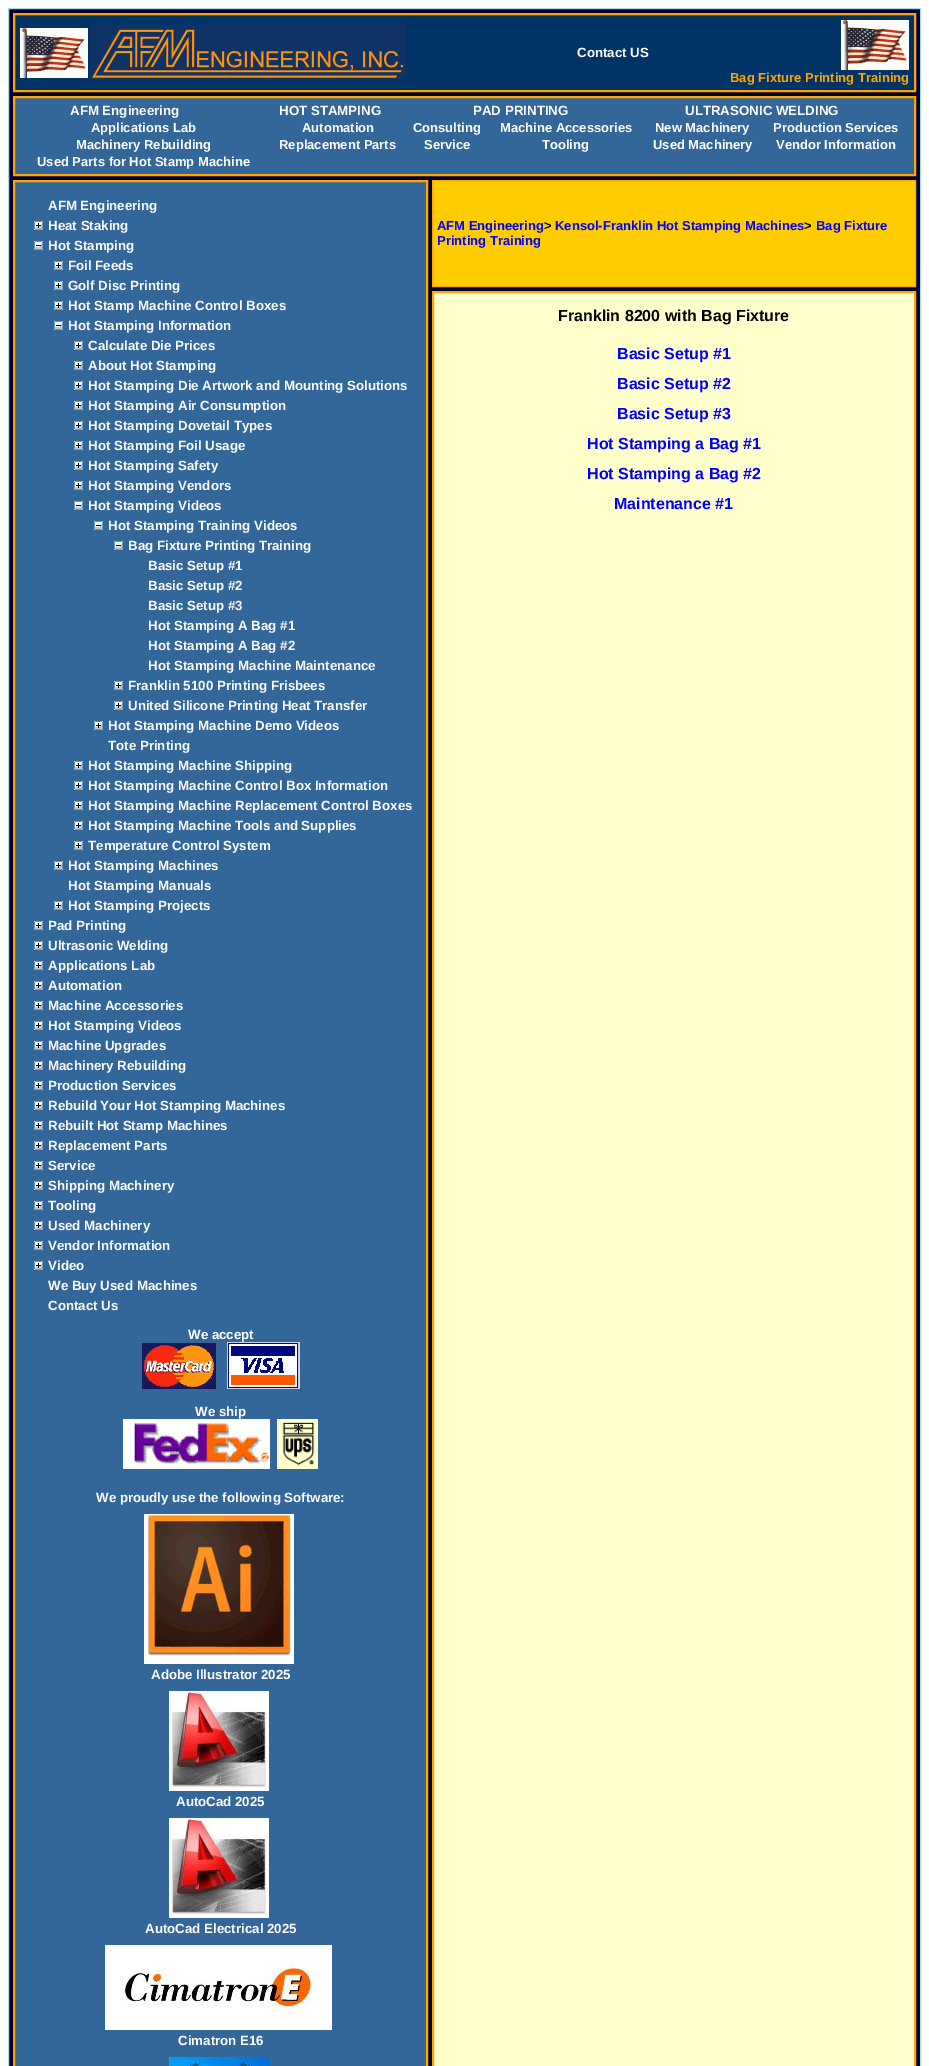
%!PS
<< /PageSize [929 2066] >> setpagedevice
/m/moveto load def
/l/rlineto load def
/z/closepath load def
/f/fill load def
/s/stroke load def
/q/gsave load def
/Q_/grestore load def
/w/setlinewidth load def
/C { dup -16 bitshift 255 div exch dup -8 bitshift 255 and 255 div exch 255 and 255 div setrgbcolor } def
/F { [ exch dup neg 0 0 3 -1 roll 0 0 ] selectfont } def
/T { moveto show } def
/R { rectfill } def
/I { 5 dict begin { /h /w /y /x /name } { exch def } forall
  gsave x y translate w h scale
  w h 8 [w 0 0 h 0 0] name (r) file false 3 colorimage grestore end } def
0 2066 translate 1 -1 scale
4 setmiterlimit
16#FFFFFF C
0 0 929 2066 R
16#000033 C
8.5 8.5 m 912 0 l 0 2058 l -912 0 l z q f Q_
16#ADD8E6 C
s
16#003366 C
14 14 m 901 0 l 0 77 l -901 0 l z q f Q_
16#FFA500 C
2 w
s
(1.rgb) 20 28 68 50 I
(2.rgb) 90 25 315 56 I
/LiberationSans-Bold 13.3 F
16#FFFFFF C
(Contact US) 577 57 T
(1.rgb) 841 20 68 50 I
/LiberationSans-Bold 13 F
16#FFA500 C
(Bag Fixture Printing Training) 730 82 T
16#336699 C
14 97 m 901 0 l 0 78 l -901 0 l z q f Q_
16#FFA500 C
s
/LiberationSans-Bold 13.3 F
16#FFFFFF C
(AFM Engineering) 70 115 T
(HOT STAMPING) 279 115 T
(PAD PRINTING) 473 115 T
(ULTRASONIC WELDING) 685 115 T
/LiberationSans-Bold 13 F
(Applications Lab) 91 132 T
(Automation) 302 132 T
(Consulting) 413 132 T
(Machine Accessories) 500 132 T
(New Machinery) 655 132 T
(Production Services) 773 132 T
(Machinery Rebuilding) 76 149 T
(Replacement Parts) 279 149 T
(Service) 424 149 T
(Tooling) 542 149 T
(Used Machinery) 653 149 T
(Vendor Information) 776 149 T
(Used Parts for Hot Stamp Machine) 37 166 T
16#336699 C
14 181 m 413 0 l 0 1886 l -413 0 l z q f Q_
16#FFA500 C
s
/LiberationSans-Bold 13.3 F
16#FFFFFF C
(AFM Engineering) 48 210 T
(3.rgb) 34 221 9 9 I
(Heat Staking) 48 230 T
(4.rgb) 34 241 9 9 I
(Hot Stamping) 48 250 T
(3.rgb) 54 261 9 9 I
(Foil Feeds) 68 270 T
(3.rgb) 54 281 9 9 I
(Golf Disc Printing) 68 290 T
(3.rgb) 54 301 9 9 I
(Hot Stamp Machine Control Boxes) 68 310 T
(4.rgb) 54 321 9 9 I
(Hot Stamping Information) 68 330 T
(3.rgb) 74 341 9 9 I
(Calculate Die Prices) 88 350 T
(3.rgb) 74 361 9 9 I
(About Hot Stamping) 88 370 T
(3.rgb) 74 381 9 9 I
(Hot Stamping Die Artwork and Mounting Solutions) 88 390 T
(3.rgb) 74 401 9 9 I
(Hot Stamping Air Consumption) 88 410 T
(3.rgb) 74 421 9 9 I
(Hot Stamping Dovetail Types) 88 430 T
(3.rgb) 74 441 9 9 I
(Hot Stamping Foil Usage) 88 450 T
(3.rgb) 74 461 9 9 I
(Hot Stamping Safety) 88 470 T
(3.rgb) 74 481 9 9 I
(Hot Stamping Vendors) 88 490 T
(4.rgb) 74 501 9 9 I
(Hot Stamping Videos) 88 510 T
(4.rgb) 94 521 9 9 I
(Hot Stamping Training Videos) 108 530 T
(4.rgb) 114 541 9 9 I
(Bag Fixture Printing Training) 128 550 T
(Basic Setup #1) 148 570 T
(Basic Setup #2) 148 590 T
(Basic Setup #3) 148 610 T
(Hot Stamping A Bag #1) 148 630 T
(Hot Stamping A Bag #2) 148 650 T
(Hot Stamping Machine Maintenance) 148 670 T
(3.rgb) 114 681 9 9 I
(Franklin 5100 Printing Frisbees) 128 690 T
(3.rgb) 114 701 9 9 I
(United Silicone Printing Heat Transfer) 128 710 T
(3.rgb) 94 721 9 9 I
(Hot Stamping Machine Demo Videos) 108 730 T
(Tote Printing) 108 750 T
(3.rgb) 74 761 9 9 I
(Hot Stamping Machine Shipping) 88 770 T
(3.rgb) 74 781 9 9 I
(Hot Stamping Machine Control Box Information) 88 790 T
(3.rgb) 74 801 9 9 I
(Hot Stamping Machine Replacement Control Boxes) 88 810 T
(3.rgb) 74 821 9 9 I
(Hot Stamping Machine Tools and Supplies) 88 830 T
(3.rgb) 74 841 9 9 I
(Temperature Control System) 88 850 T
(3.rgb) 54 861 9 9 I
(Hot Stamping Machines) 68 870 T
(Hot Stamping Manuals) 68 890 T
(3.rgb) 54 901 9 9 I
(Hot Stamping Projects) 68 910 T
(3.rgb) 34 921 9 9 I
(Pad Printing) 48 930 T
(3.rgb) 34 941 9 9 I
(Ultrasonic Welding) 48 950 T
(3.rgb) 34 961 9 9 I
(Applications Lab) 48 970 T
(3.rgb) 34 981 9 9 I
(Automation) 48 990 T
(3.rgb) 34 1001 9 9 I
(Machine Accessories) 48 1010 T
(3.rgb) 34 1021 9 9 I
(Hot Stamping Videos) 48 1030 T
(3.rgb) 34 1041 9 9 I
(Machine Upgrades) 48 1050 T
(3.rgb) 34 1061 9 9 I
(Machinery Rebuilding) 48 1070 T
(3.rgb) 34 1081 9 9 I
(Production Services) 48 1090 T
(3.rgb) 34 1101 9 9 I
(Rebuild Your Hot Stamping Machines) 48 1110 T
(3.rgb) 34 1121 9 9 I
(Rebuilt Hot Stamp Machines) 48 1130 T
(3.rgb) 34 1141 9 9 I
(Replacement Parts) 48 1150 T
(3.rgb) 34 1161 9 9 I
(Service) 48 1170 T
(3.rgb) 34 1181 9 9 I
(Shipping Machinery) 48 1190 T
(3.rgb) 34 1201 9 9 I
(Tooling) 48 1210 T
(3.rgb) 34 1221 9 9 I
(Used Machinery) 48 1230 T
(3.rgb) 34 1241 9 9 I
(Vendor Information) 48 1250 T
(3.rgb) 34 1261 9 9 I
(Video) 48 1270 T
(We Buy Used Machines) 48 1290 T
(Contact Us) 48 1310 T
(We accept) 188 1339 T
(5.rgb) 142 1343 74 46 I
(6.rgb) 227 1342 73 47 I
(We ship) 195 1416 T
(7.rgb) 123 1419 147 50 I
(8.rgb) 277 1419 41 50 I
(We proudly use the following Software:) 96 1502 T
(9.rgb) 144 1514 150 150 I
(Adobe Illustrator 2025) 151 1679 T
(10.rgb) 169 1691 100 100 I
(AutoCad 2025) 176 1806 T
(10.rgb) 169 1818 100 100 I
(AutoCad Electrical 2025) 145 1933 T
(11.rgb) 105 1945 227 85 I
(Cimatron E16) 178 2045 T
(12.rgb) 169 2057 100 9 I
16#FFCC00 C
432.5 180.5 m 483 0 l 0 106 l -483 0 l z q f Q_
16#FFA500 C
1 w
s
/LiberationSans-Bold 13 F
16#0000FF C
(AFM Engineering) 437 230 T
16#000000 C
(>) 544 230 T
16#0000FF C
(Kensol-Franklin Hot Stamping Machines) 555 230 T
16#000000 C
(>) 804 230 T
16#0000FF C
(Bag Fixture) 816 230 T
(Printing Training) 437 245 T
16#FFFFCC C
433 292 m 482 0 l 0 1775 l -482 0 l z q f Q_
16#FFA500 C
2 w
s
/LiberationSans-Bold 16 F
16#000000 C
(Franklin 8200 with Bag Fixture) 558 321 T
16#0000FF C
(Basic Setup #1) 617 359 T
(Basic Setup #2) 617 389 T
(Basic Setup #3) 617 419 T
(Hot Stamping a Bag #1) 587 449 T
(Hot Stamping a Bag #2) 587 479 T
(Maintenance #1) 614 509 T
showpage
